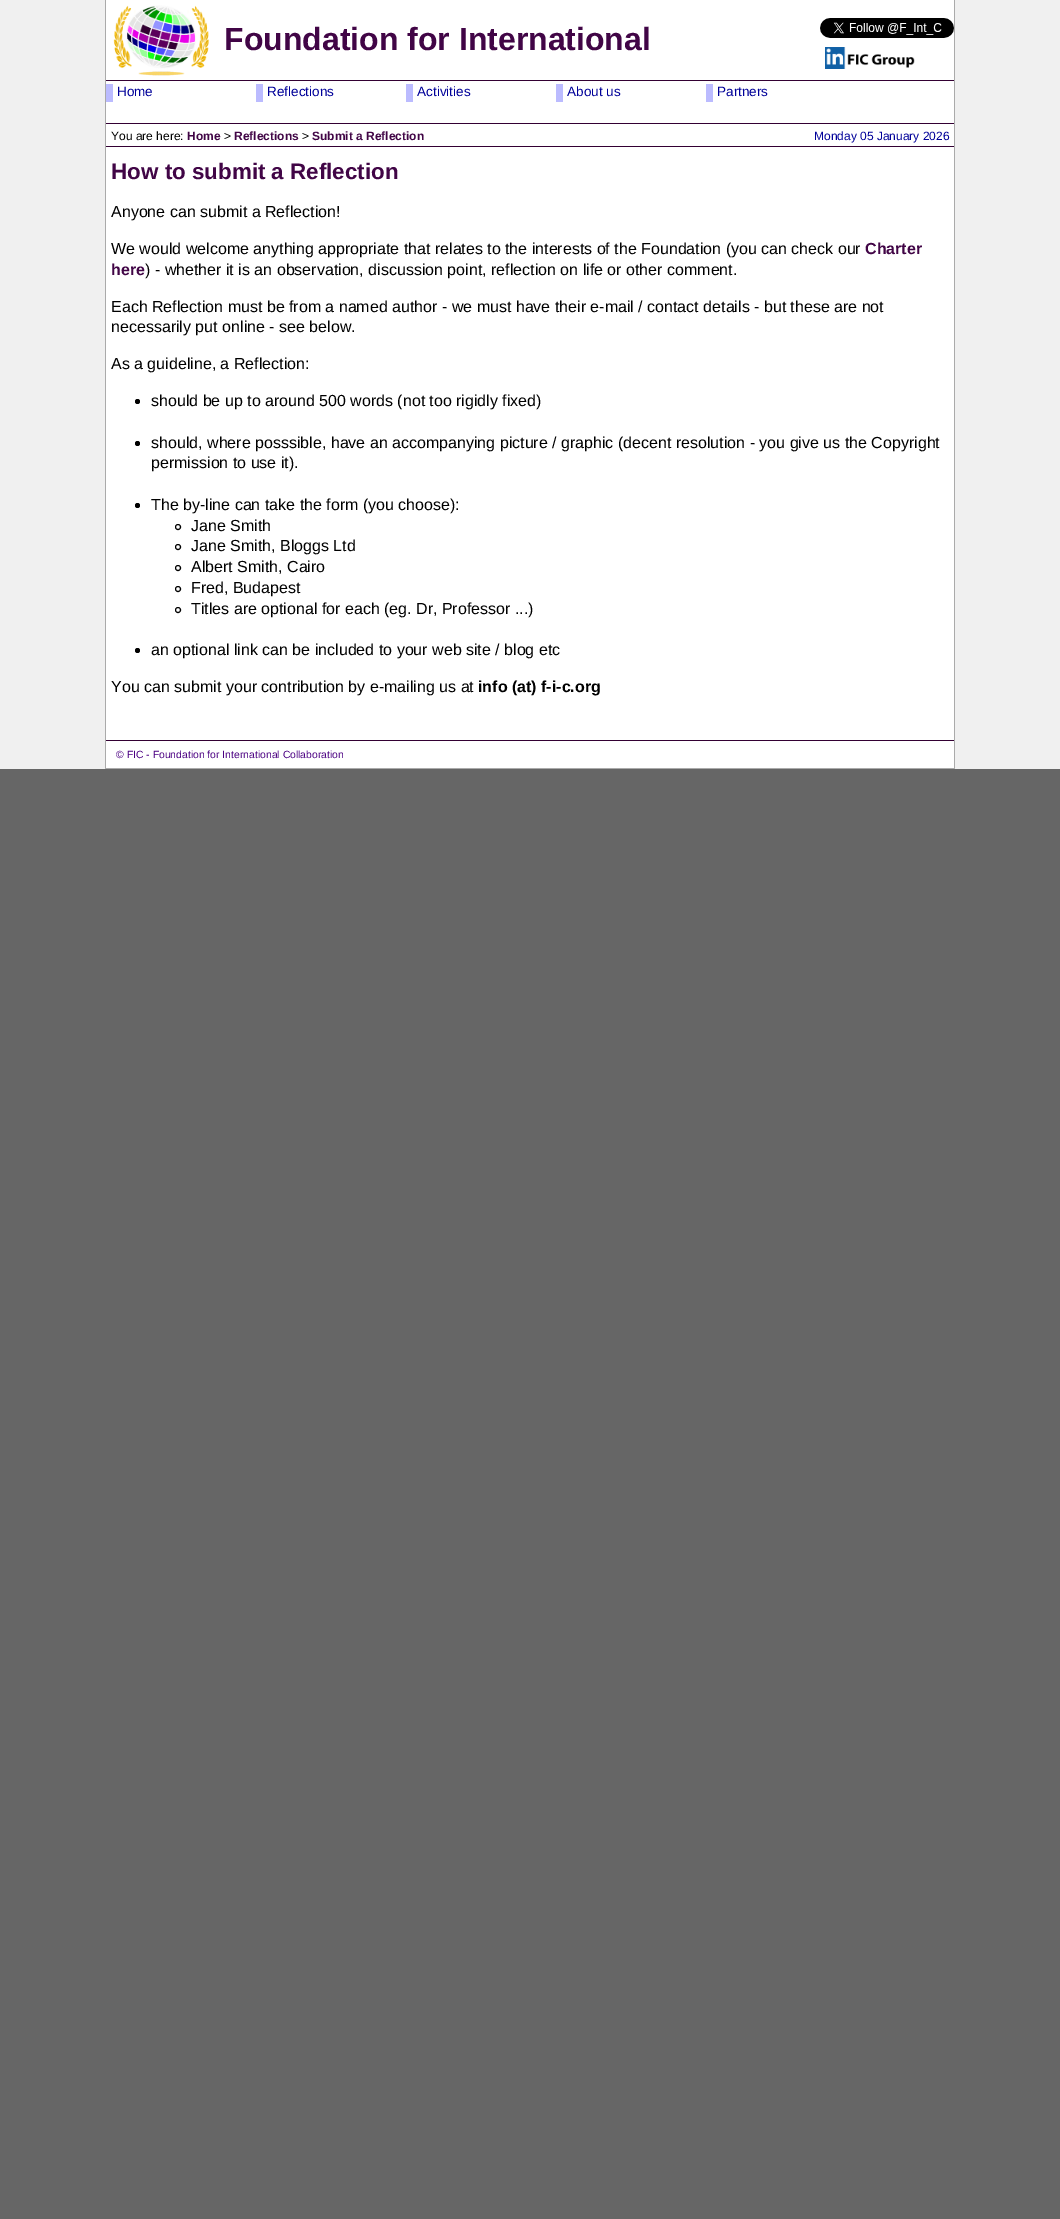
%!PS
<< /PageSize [1060 2219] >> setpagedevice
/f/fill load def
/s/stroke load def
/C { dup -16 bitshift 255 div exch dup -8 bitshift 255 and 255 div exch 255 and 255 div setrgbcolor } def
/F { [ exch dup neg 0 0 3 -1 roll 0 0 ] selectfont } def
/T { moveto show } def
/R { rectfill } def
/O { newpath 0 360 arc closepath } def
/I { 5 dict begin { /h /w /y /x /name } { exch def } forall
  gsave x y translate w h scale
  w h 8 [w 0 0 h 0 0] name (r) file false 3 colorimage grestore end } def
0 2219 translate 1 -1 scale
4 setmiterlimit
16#666666 C
0 0 1060 2219 R
16#F0F0F0 C
0 0 1060 769 R
16#FFFFFF C
106 0 848 768 R
16#AAAAAA C
954 0 1 769 R
105 0 1 769 R
16#330033 C
106 80 848 1 R
(1.rgb) 113 5 97 71 I
/LiberationSans-Bold 32 F
16#410546 C
(Foundation for International) 224 50 T
(2.rgb) 820 18 134 20 I
(3.rgb) 825 47 90 22 I
16#BBBBFF C
106 84 7 18 R
/LiberationSans-Regular 13.5 F
16#000099 C
(Home) 117 96 T
16#BBBBFF C
256 84 7 18 R
16#000099 C
(Reflections) 267 96 T
16#BBBBFF C
406 84 7 18 R
16#000099 C
(Activities) 417 96 T
16#BBBBFF C
556 84 7 18 R
16#000099 C
(About us) 567 96 T
16#BBBBFF C
706 84 7 18 R
16#000099 C
(Partners) 717 96 T
16#330033 C
106 123 848 1 R
106 146 848 1 R
/LiberationSans-Regular 12 F
16#000000 C
(You are here:) 111 140 T
/LiberationSans-Bold 12 F
16#410546 C
(Home) 187 140 T
/LiberationSans-Regular 12 F
16#000000 C
(>) 224 140 T
/LiberationSans-Bold 12 F
16#410546 C
(Reflections) 234 140 T
/LiberationSans-Regular 12 F
16#000000 C
(>) 302 140 T
/LiberationSans-Bold 12 F
16#410546 C
(Submit a Reflection) 312 140 T
/LiberationSans-Regular 12 F
16#000099 C
(Monday 05 January 2026) 814 140 T
/LiberationSans-Bold 22.4 F
16#410546 C
(How to submit a Reflection) 111 179 T
/LiberationSans-Regular 16 F
16#000000 C
(Anyone can submit a Reflection!) 111 217 T
(We would welcome anything appropriate that relates to the interests of the Foundation \(you can check our) 111 254 T
/LiberationSans-Bold 16 F
16#410546 C
(Charter) 865 254 T
(here) 111 275 T
/LiberationSans-Regular 16 F
16#000000 C
(\) - whether it is an observation, discussion point, reflection on life or other comment.) 145 275 T
(Each Reflection must be from a named author - we must have their e-mail / contact details - but these are not) 111 312 T
(necessarily put online - see below.) 111 332 T
(As a guideline, a Reflection:) 111 369 T
137.5 401.5 2.5 O f
(should be up to around 500 words \(not too rigidly fixed\)) 151 406 T
137.5 443.5 2.5 O f
(should, where posssible, have an accompanying picture / graphic \(decent resolution - you give us the Copyright) 151 448 T
(permission to use it\).) 151 468 T
137.5 505.5 2.5 O f
(The by-line can take the form \(you choose\):) 151 510 T
178 527 2.5 O s
(Jane Smith) 191 531 T
178 547 2.5 O s
(Jane Smith, Bloggs Ltd) 191 551 T
178 568 2.5 O s
(Albert Smith, Cairo) 191 572 T
178 589 2.5 O s
(Fred, Budapest) 191 593 T
178 610 2.5 O s
(Titles are optional for each \(eg. Dr, Professor ...\)) 191 614 T
137.5 650.5 2.5 O f
(an optional link can be included to your web site / blog etc) 151 655 T
(You can submit your contribution by e-mailing us at) 111 692 T
/LiberationSans-Bold 16 F
(info \(at\) f-i-c.org) 478 692 T
16#330033 C
106 740 848 1 R
16#AAAAAA C
106 768 848 1 R
/LiberationSans-Regular 10.4 F
16#4B0082 C
(© FIC - Foundation for International Collaboration) 116 758 T
showpage
